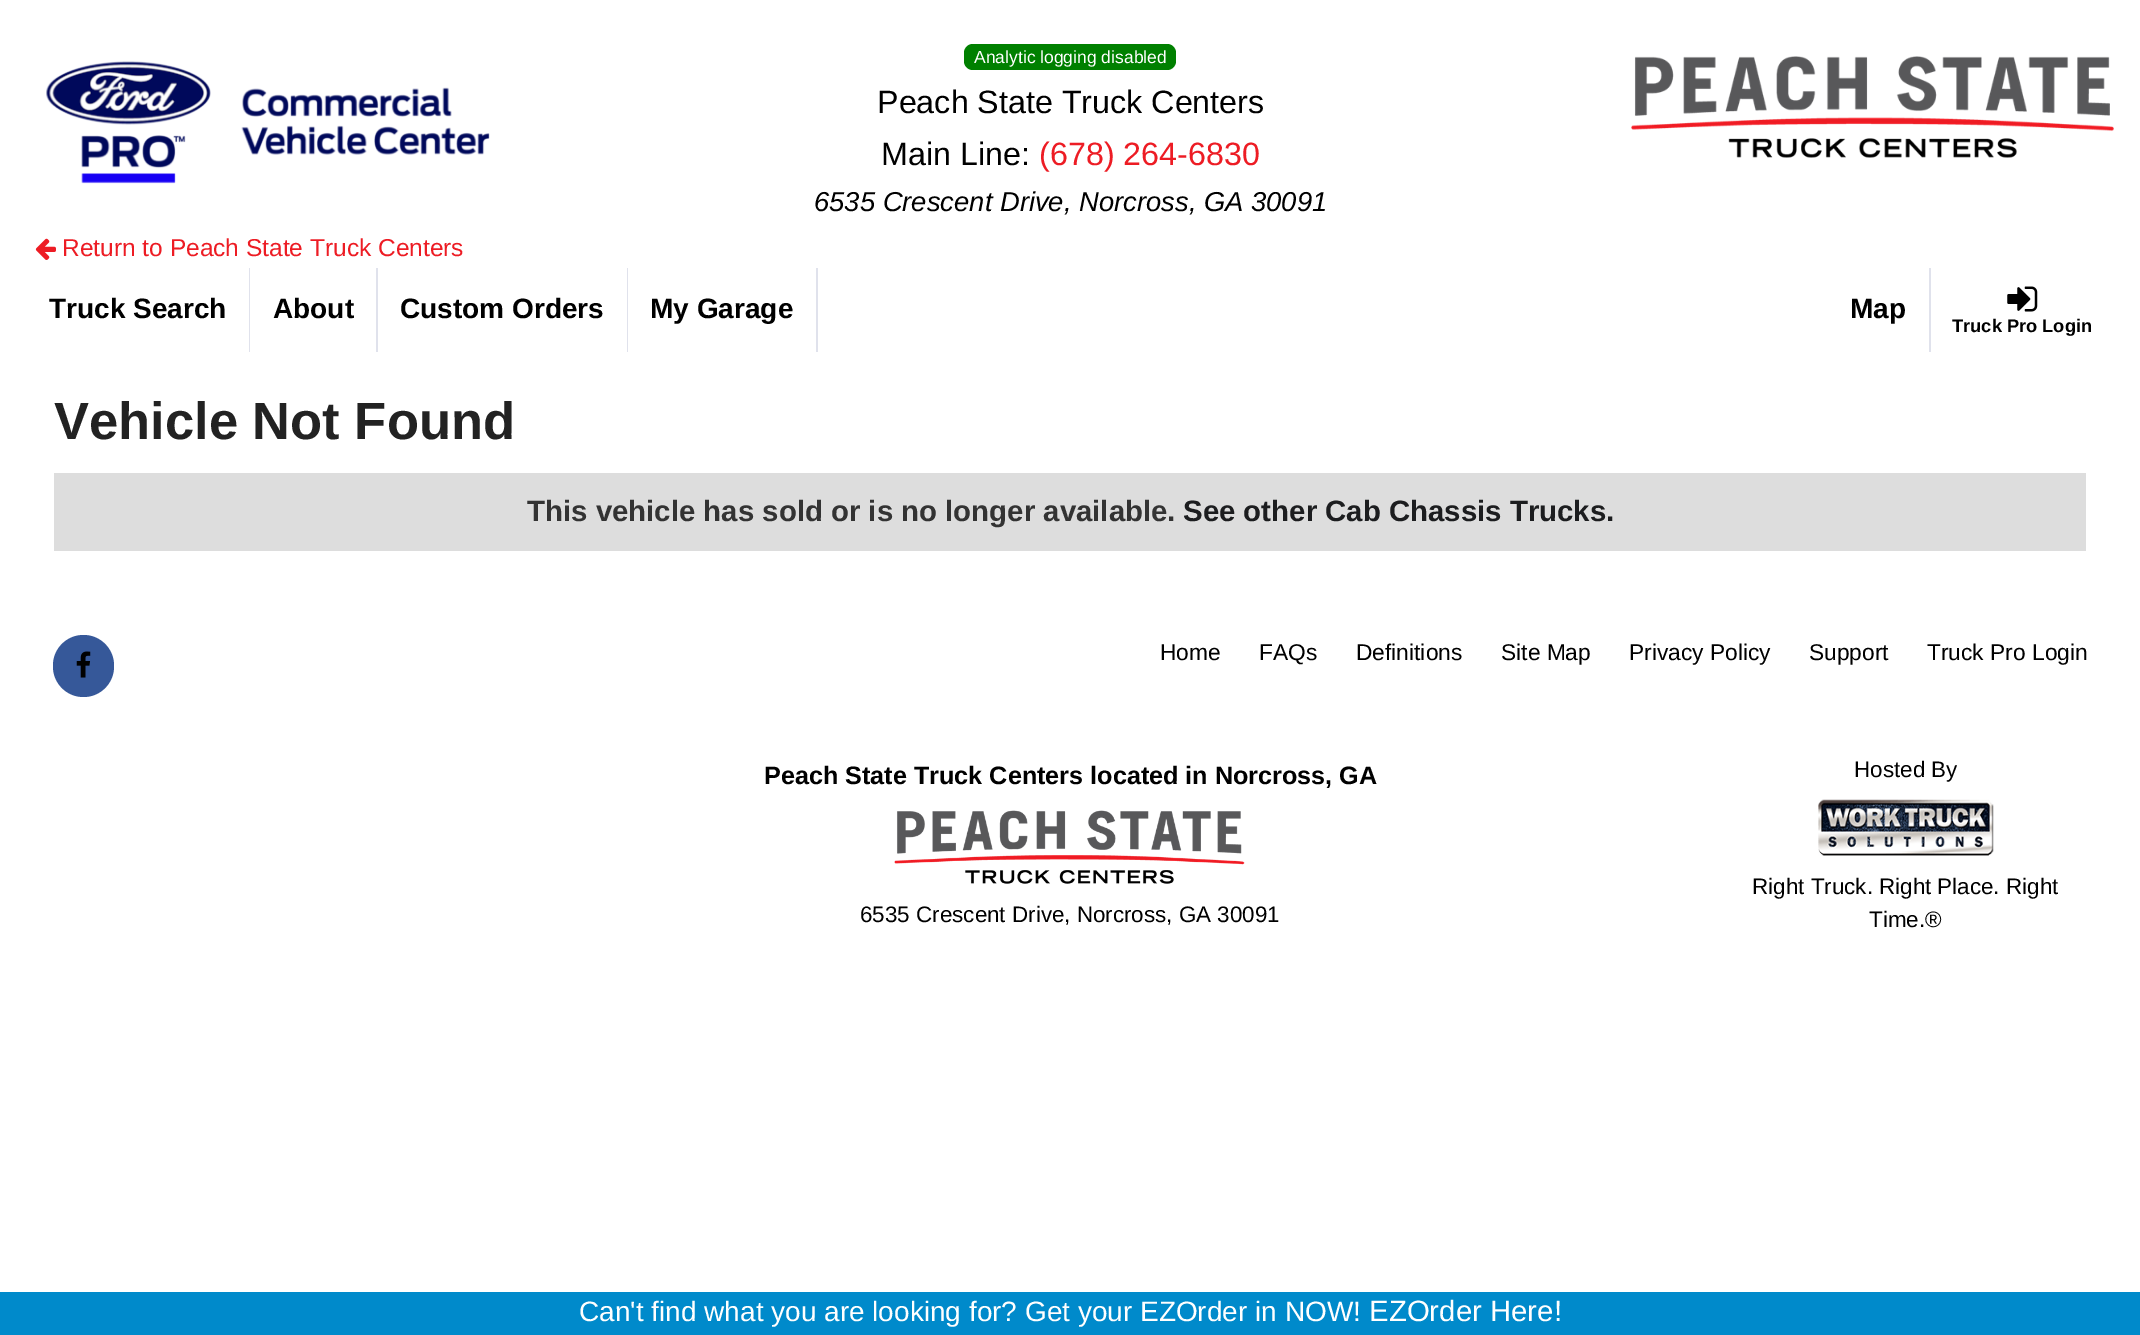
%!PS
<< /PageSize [2140 1335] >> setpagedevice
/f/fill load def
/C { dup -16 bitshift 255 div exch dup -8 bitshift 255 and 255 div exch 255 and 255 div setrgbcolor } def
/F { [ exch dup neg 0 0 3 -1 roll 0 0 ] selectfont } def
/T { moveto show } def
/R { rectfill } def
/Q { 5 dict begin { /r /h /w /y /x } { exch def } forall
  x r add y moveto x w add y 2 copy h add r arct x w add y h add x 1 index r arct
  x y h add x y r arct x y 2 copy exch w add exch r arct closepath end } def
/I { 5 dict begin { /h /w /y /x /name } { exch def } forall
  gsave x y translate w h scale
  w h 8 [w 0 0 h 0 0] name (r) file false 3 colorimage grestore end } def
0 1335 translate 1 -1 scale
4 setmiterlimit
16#FFFFFF C
0 0 2140 1335 R
(1.rgb) 46 61 444 123 I
16#008000 C
964 44 212 26 9 Q f
/LiberationSans-Regular 17.5 F
16#FFFFFF C
(Analytic logging disabled) 974 63 T
/LiberationSans-Regular 32.25 F
16#000000 C
(Peach State Truck Centers) 877 113 T
(Main Line:) 881 165 T
16#ED1C24 C
(\(678\) 264-6830) 1039 165 T
/LiberationSans-Italic 27.4 F
16#000000 C
(6535 Crescent Drive, Norcross, GA 30091) 814 211 T
(2.rgb) 1631 56 483 102 I
(3.rgb) 35 238 21 22 I
/LiberationSans-Regular 24.5 F
16#ED1C24 C
(Return to Peach State Truck Centers) 62 256 T
16#E0E2EC C
249 268 1 84 R
/LiberationSans-Bold 28 F
16#000000 C
(Truck Search) 49 318 T
16#E0E2EC C
376 268 2 84 R
16#000000 C
(About) 273 318 T
16#E0E2EC C
627 268 1 84 R
16#000000 C
(Custom Orders) 400 318 T
16#E0E2EC C
816 268 2 84 R
16#000000 C
(My Garage) 650 318 T
16#E0E2EC C
1929 268 2 84 R
16#000000 C
(Map) 1850 318 T
(4.rgb) 2007 286 31 26 I
/LiberationSans-Bold 18.25 F
(Truck Pro Login) 1952 332 T
/LiberationSans-Bold 52.5 F
16#222222 C
(Vehicle Not Found) 54 439 T
16#DDDDDD C
54 473 2032 78 R
/LiberationSans-Bold 29.4 F
16#333333 C
(This vehicle has sold or is no longer available.) 527 521 T
16#1C1D1F C
(See other Cab Chassis Trucks.) 1183 521 T
16#365899 C
53 635 61 62 30.5 Q f
(5.rgb) 76 651 15 27 I
/LiberationSans-Regular 22.75 F
16#000000 C
(Home) 1160 660 T
(FAQs) 1259 660 T
(Definitions) 1356 660 T
(Site Map) 1501 660 T
(Privacy Policy) 1629 660 T
(Support) 1809 660 T
(Truck Pro Login) 1927 660 T
/LiberationSans-Bold 25.2 F
(Peach State Truck Centers located in Norcross, GA) 764 784 T
(6.rgb) 894 810 351 74 I
/LiberationSans-Regular 22.4 F
(6535 Crescent Drive, Norcross, GA 30091) 860 922 T
(Hosted By) 1854 777 T
(7.rgb) 1818 799 176 57 I
(Right Truck. Right Place. Right) 1752 894 T
(Time.®) 1869 927 T
16#008ACB C
0 1292 2140 43 R
/LiberationSans-Regular 28 F
16#FFFFFF C
(Can't find what you are looking for? Get your EZOrder in NOW!) 579 1321 T
/LiberationSans-Regular 29.4 F
(EZOrder Here!) 1369 1321 T
showpage
